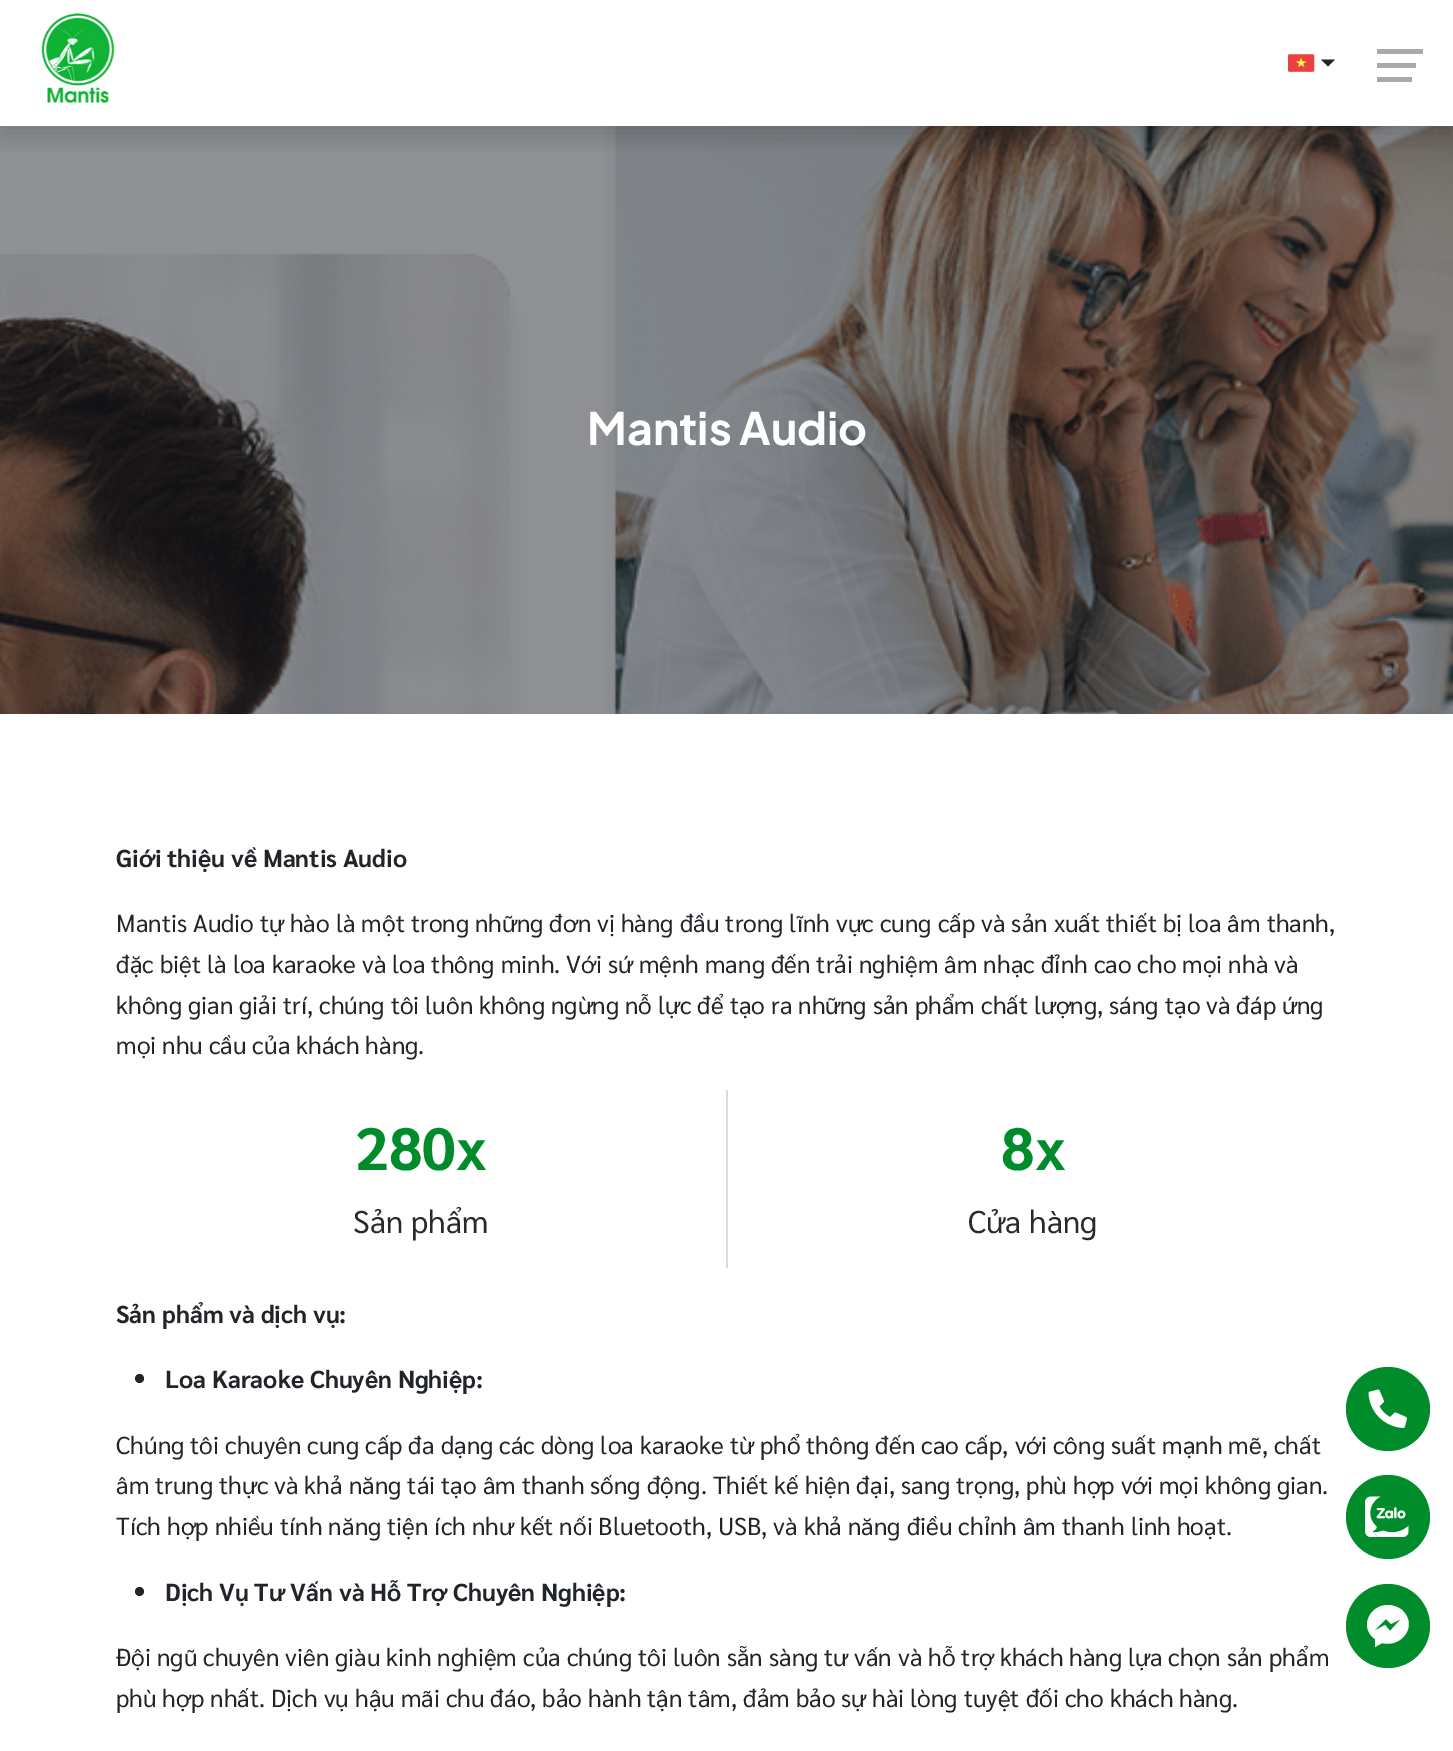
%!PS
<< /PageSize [1453 1751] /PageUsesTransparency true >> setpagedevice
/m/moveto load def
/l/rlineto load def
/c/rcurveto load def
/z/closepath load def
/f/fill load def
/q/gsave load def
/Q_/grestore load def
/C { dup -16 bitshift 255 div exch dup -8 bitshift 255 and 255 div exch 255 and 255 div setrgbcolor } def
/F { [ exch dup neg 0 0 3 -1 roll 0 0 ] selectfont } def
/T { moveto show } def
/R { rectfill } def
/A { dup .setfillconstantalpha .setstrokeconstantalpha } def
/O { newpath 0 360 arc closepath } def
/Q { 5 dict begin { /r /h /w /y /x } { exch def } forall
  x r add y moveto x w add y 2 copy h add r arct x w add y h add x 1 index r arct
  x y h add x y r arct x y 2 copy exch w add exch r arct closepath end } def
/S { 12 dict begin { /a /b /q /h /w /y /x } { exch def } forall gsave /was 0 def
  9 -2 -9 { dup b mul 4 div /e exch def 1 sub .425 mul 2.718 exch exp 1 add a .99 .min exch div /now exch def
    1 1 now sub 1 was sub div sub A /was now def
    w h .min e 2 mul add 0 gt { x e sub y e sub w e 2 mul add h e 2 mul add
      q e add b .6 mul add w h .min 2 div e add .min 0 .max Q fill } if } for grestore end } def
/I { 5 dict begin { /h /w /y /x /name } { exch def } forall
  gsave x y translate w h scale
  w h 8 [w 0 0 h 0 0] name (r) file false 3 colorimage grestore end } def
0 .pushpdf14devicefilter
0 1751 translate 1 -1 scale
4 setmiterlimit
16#FFFFFF C
0 0 1453 1751 R
16#8F9194 C
0 126 617 588 R
(3.rgb) 0 126 1453 588 I
q
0 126 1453 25 rectclip
16#000000 C
0 12 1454 126 0 12 .15 S
Q_
(1.rgb) 41 13 74 90 I
(2.rgb) 1288 54 27 18 I
16#212529 C
1321 59.5 m 14 0 l -7 7 l z f
16#A9A9A9 C
1377 63 39 5 R
1377 49 46 5 R
1377 77 35 5 R
/PlusJakartaSans-Bold 44.5 F
16#FFFFFF C
(Mantis Audio) 587 445 T
/Sarabun-Bold 24.5 F
16#212529 C
(Giới thiệu về Mantis Audio) 116 867 T
/Sarabun-Regular 24.5 F
(Mantis Audio tự hào là một trong những đơn vị hàng đầu trong lĩnh vực cung cấp và sản xuất thiết bị loa âm thanh,) 116 932 T
(đặc biệt là loa karaoke và loa thông minh. Với sứ mệnh mang đến trải nghiệm âm nhạc đỉnh cao cho mọi nhà và) 116 973 T
(không gian giải trí, chúng tôi luôn không ngừng nỗ lực để tạo ra những sản phẩm chất lượng, sáng tạo và đáp ứng) 116 1014 T
(mọi nhu cầu của khách hàng.) 116 1054 T
16#DCDCDC C
728 1090 m 0 179 l -2 -2 l 0 -177 l z f
/Sarabun-Bold 59.5 F
16#008C2B C
(280x) 355 1170 T
/Sarabun-Regular 31.5 F
16#292929 C
(Sản phẩm) 353 1233 T
/Sarabun-Bold 59.5 F
16#008C2B C
(8x) 1001 1170 T
/Sarabun-Regular 31.5 F
16#292929 C
(Cửa hàng) 968 1233 T
/Sarabun-Bold 24.5 F
16#212529 C
(Sản phẩm và dịch vụ:) 116 1323 T
139.5 1378.5 4.5 O f
(Loa Karaoke Chuyên Nghiệp:) 165 1388 T
/Sarabun-Regular 24.5 F
(Chúng tôi chuyên cung cấp đa dạng các dòng loa karaoke từ phổ thông đến cao cấp, với công suất mạnh mẽ, chất) 116 1454 T
(âm trung thực và khả năng tái tạo âm thanh sống động. Thiết kế hiện đại, sang trọng, phù hợp với mọi không gian.) 116 1494 T
(Tích hợp nhiều tính năng tiện ích như kết nối Bluetooth, USB, và khả năng điều chỉnh âm thanh linh hoạt.) 116 1535 T
139.5 1591.5 4.5 O f
/Sarabun-Bold 24.5 F
(Dịch Vụ Tư Vấn và Hỗ Trợ Chuyên Nghiệp:) 165 1601 T
/Sarabun-Regular 24.5 F
(Đội ngũ chuyên viên giàu kinh nghiệm của chúng tôi luôn sẵn sàng tư vấn và hỗ trợ khách hàng lựa chọn sản phẩm) 116 1666 T
(phù hợp nhất. Dịch vụ hậu mãi chu đáo, bảo hành tận tâm, đảm bảo sự hài lòng tuyệt đối cho khách hàng.) 116 1707 T
16#008C2B C
1388 1409 42 O f
(4.rgb) 1368 1389 39 39 I
1388 1517 42 O f
(5.rgb) 1365 1496 44 41 I
1388 1626 42 O f
16#FFFFFF C
1388 1605 m -19 0 -29 23 -13 34 c 0 8 l 7 -4 l 19 5 37 -17 20 -33 c -4 -3 -9 -5 -14 -5 c z 1390 1631 m -5 -6 l -11 6 l 12 -12 l 5 5 l 10 -5 l z f
.poppdf14devicefilter showpage
